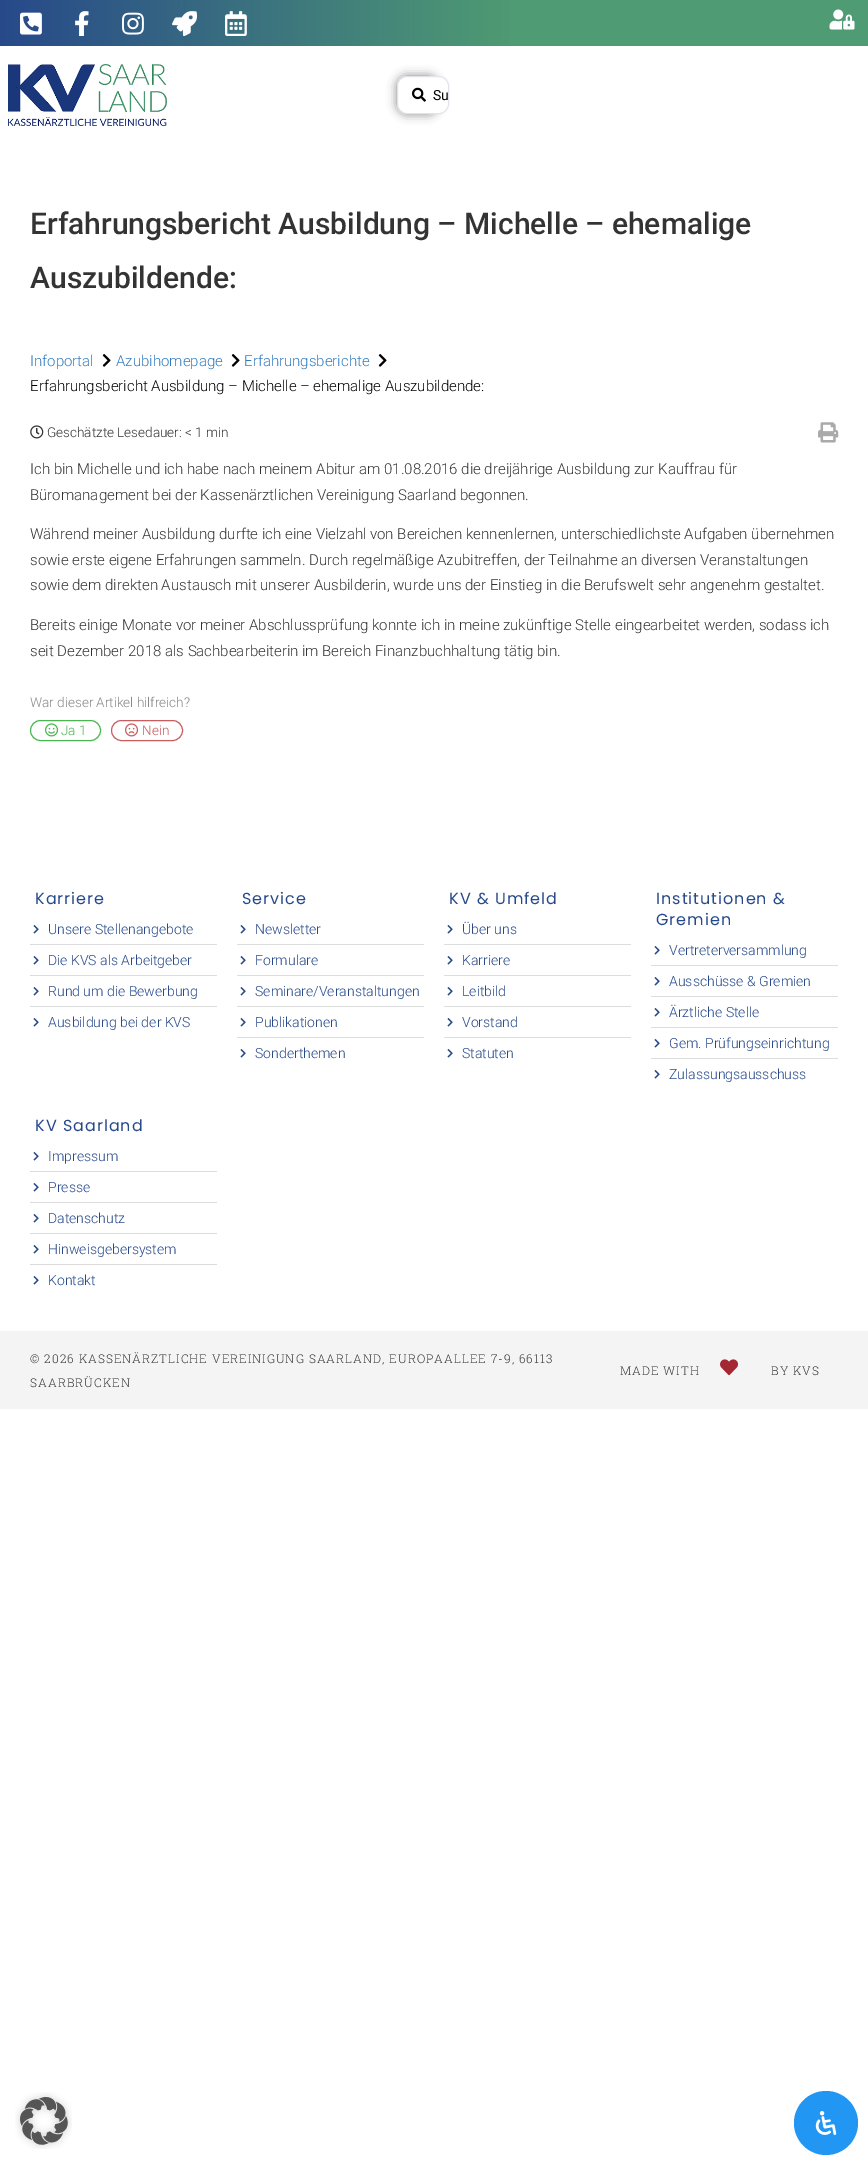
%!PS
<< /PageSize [868 2165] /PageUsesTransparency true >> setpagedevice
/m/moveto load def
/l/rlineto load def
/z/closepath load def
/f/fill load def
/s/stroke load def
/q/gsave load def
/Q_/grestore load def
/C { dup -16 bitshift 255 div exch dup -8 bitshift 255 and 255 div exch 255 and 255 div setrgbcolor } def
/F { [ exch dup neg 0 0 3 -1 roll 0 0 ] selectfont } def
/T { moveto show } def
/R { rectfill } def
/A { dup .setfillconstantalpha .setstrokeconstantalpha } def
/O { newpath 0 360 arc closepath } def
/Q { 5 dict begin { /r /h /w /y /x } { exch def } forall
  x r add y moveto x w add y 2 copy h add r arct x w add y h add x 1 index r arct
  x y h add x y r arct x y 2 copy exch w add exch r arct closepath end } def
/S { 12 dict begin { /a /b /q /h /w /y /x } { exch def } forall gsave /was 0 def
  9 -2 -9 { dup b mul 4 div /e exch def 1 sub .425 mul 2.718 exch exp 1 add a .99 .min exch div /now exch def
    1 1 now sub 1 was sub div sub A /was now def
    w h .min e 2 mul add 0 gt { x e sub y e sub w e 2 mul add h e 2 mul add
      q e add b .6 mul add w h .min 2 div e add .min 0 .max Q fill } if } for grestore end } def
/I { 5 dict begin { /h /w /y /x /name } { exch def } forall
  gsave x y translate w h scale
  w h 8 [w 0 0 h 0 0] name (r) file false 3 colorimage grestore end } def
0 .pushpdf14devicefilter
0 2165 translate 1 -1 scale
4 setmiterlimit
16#FFFFFF C
0 0 868 2165 R
q 0 0 m 868 0 l 0 46 l -868 0 l z clip newpath
<< /ShadingType 2 /ColorSpace /DeviceRGB /Coords [0 23 868 23] /Extend [true true] /Function << /FunctionType 3 /Domain [0 1] /Functions [<< /FunctionType 2 /Domain [0 1] /C0 [.153 .286 .541] /C1 [.31 .608 .451] /N 1 >> << /FunctionType 2 /Domain [0 1] /C0 [.31 .608 .451] /C1 [.31 .608 .451] /N 1 >>] /Bounds [.59] /Encode [0 1 0 1] >> >> shfill Q_
(1.rgb) 20 12 22 23 I
(2.rgb) 75 11 14 25 I
(3.rgb) 122 12 22 23 I
(4.rgb) 172 11 25 25 I
(5.rgb) 225 11 22 25 I
(6.rgb) 829 9 26 21 I
(7.rgb) 8 64 159 62 I
16#000000 C
397 76 41 38 10 5 .5 S
16#FFFFFF C
397.5 76.5 51 37 9.5 Q q f Q_
16#E1E5EB C
s
(8.rgb) 412 87 14 15 I
/Roboto-Regular 14 F
16#000000 C
(Su) 433 100 T
/Roboto-Medium 30 F
16#333333 C
(Erfahrungsbericht Ausbildung – Michelle – ehemalige) 30 234 T
(Auszubildende:) 30 288 T
/Roboto-Light 15 F
16#317ABF C
(Infoportal) 30 366 T
(9.rgb) 102 354 9 13 I
(Azubihomepage) 116 366 T
(9.rgb) 231 354 9 13 I
(Erfahrungsberichte) 244 366 T
(9.rgb) 378 354 9 13 I
16#000000 C
(Erfahrungsbericht Ausbildung – Michelle – ehemalige Auszubildende:) 30 391 T
(10.rgb) 30 425 14 14 I
/Roboto-Light 13.5 F
16#333333 C
(Geschätzte Lesedauer: < 1 min) 47 437 T
(11.rgb) 818 422 21 21 I
/Roboto-Light 15 F
(Ich bin Michelle und ich habe nach meinem Abitur am 01.08.2016 die dreijährige Ausbildung zur Kauffrau für) 30 474 T
(Büromanagement bei der Kassenärztlichen Vereinigung Saarland begonnen.) 30 500 T
(Während meiner Ausbildung durfte ich eine Vielzahl von Bereichen kennenlernen, unterschiedlichste Aufgaben übernehmen) 30 539 T
(sowie erste eigene Erfahrungen sammeln. Durch regelmäßige Azubitreffen, der Teilnahme an diversen Veranstaltungen) 30 565 T
(sowie dem direkten Austausch mit unserer Ausbilderin, wurde uns der Einstieg in die Berufswelt sehr angenehm gestaltet.) 30 590 T
(Bereits einige Monate vor meiner Abschlussprüfung konnte ich in meine zukünftige Stelle eingearbeitet werden, sodass ich) 30 630 T
(seit Dezember 2018 als Sachbearbeiterin im Bereich Finanzbuchhaltung tätig bin.) 30 656 T
/Roboto-Light 13.5 F
16#888888 C
(War dieser Artikel hilfreich?) 30 707 T
16#4BB651 C
30.5 720.5 70 20 10 Q s
(12.rgb) 45 723 14 14 I
(Ja 1) 61 735 T
16#C85C5E C
111.5 720.5 71 20 10 Q s
(13.rgb) 125 723 14 14 I
(Nein) 142 735 T
/Poppins-Regular 16 F
16#27498A C
35 904 m 1 0 (Karriere) ashow
(14.rgb) 33 925 6 9 I
/Roboto-Light 14 F
(Unsere Stellenangebote) 48 934 T
16#DDDDDD C
30 944 187 1 R
(14.rgb) 33 956 6 9 I
16#27498A C
(Die KVS als Arbeitgeber) 48 965 T
16#DDDDDD C
30 975 187 1 R
(14.rgb) 33 987 6 9 I
16#27498A C
(Rund um die Bewerbung) 48 996 T
16#DDDDDD C
30 1006 187 1 R
(14.rgb) 33 1018 6 9 I
16#27498A C
(Ausbildung bei der KVS) 48 1027 T
/Poppins-Regular 16 F
242 904 m 1 0 (Service) ashow
(14.rgb) 240 925 6 9 I
/Roboto-Light 14 F
(Newsletter) 255 934 T
16#DDDDDD C
237 944 187 1 R
(14.rgb) 240 956 6 9 I
16#27498A C
(Formulare) 255 965 T
16#DDDDDD C
237 975 187 1 R
(14.rgb) 240 987 6 9 I
16#27498A C
(Seminare/Veranstaltungen) 255 996 T
16#DDDDDD C
237 1006 187 1 R
(14.rgb) 240 1018 6 9 I
16#27498A C
(Publikationen) 255 1027 T
16#DDDDDD C
237 1037 187 1 R
(14.rgb) 240 1049 6 9 I
16#27498A C
(Sonderthemen) 255 1058 T
/Poppins-Regular 16 F
449 904 m 1 0 (KV & Umfeld) ashow
(14.rgb) 447 925 6 9 I
/Roboto-Light 14 F
(Über uns) 462 934 T
16#DDDDDD C
444 944 187 1 R
(14.rgb) 447 956 6 9 I
16#27498A C
(Karriere) 462 965 T
16#DDDDDD C
444 975 187 1 R
(14.rgb) 447 987 6 9 I
16#27498A C
(Leitbild) 462 996 T
16#DDDDDD C
444 1006 187 1 R
(14.rgb) 447 1018 6 9 I
16#27498A C
(Vorstand) 462 1027 T
16#DDDDDD C
444 1037 187 1 R
(14.rgb) 447 1049 6 9 I
16#27498A C
(Statuten) 462 1058 T
/Poppins-Regular 16 F
656 904 m 1 0 (Institutionen &) ashow
656 925 m 1 0 (Gremien) ashow
(14.rgb) 654 946 6 9 I
/Roboto-Light 14 F
(Vertreterversammlung) 669 955 T
16#DDDDDD C
651 965 187 1 R
(14.rgb) 654 977 6 9 I
16#27498A C
(Ausschüsse & Gremien) 669 986 T
16#DDDDDD C
651 996 187 1 R
(14.rgb) 654 1008 6 9 I
16#27498A C
(Ärztliche Stelle) 669 1017 T
16#DDDDDD C
651 1027 187 1 R
(14.rgb) 654 1039 6 9 I
16#27498A C
(Gem. Prüfungseinrichtung) 669 1048 T
16#DDDDDD C
651 1058 187 1 R
(14.rgb) 654 1070 6 9 I
16#27498A C
(Zulassungsausschuss) 669 1079 T
/Poppins-Regular 16 F
35 1131 m 1 0 (KV Saarland) ashow
(14.rgb) 33 1152 6 9 I
/Roboto-Light 14 F
(Impressum) 48 1161 T
16#DDDDDD C
30 1171 187 1 R
(14.rgb) 33 1183 6 9 I
16#27498A C
(Presse) 48 1192 T
16#DDDDDD C
30 1202 187 1 R
(14.rgb) 33 1214 6 9 I
16#27498A C
(Datenschutz) 48 1223 T
16#DDDDDD C
30 1233 187 1 R
(14.rgb) 33 1245 6 9 I
16#27498A C
(Hinweisgebersystem) 48 1254 T
16#DCDADB C
30 1264 187 1 R
(14.rgb) 33 1276 6 9 I
16#27498A C
(Kontakt) 48 1285 T
16#F4F4F4 C
0 1331 868 78 R
/RobotoSlab-Light 12 F
16#333333 C
30 1363 m 1 0 (© 2026 KASSENÄRZTLICHE VEREINIGUNG SAARLAND, EUROPAALLEE 7-9, 66113) ashow
30 1387 m 1 0 (SAARBRÜCKEN) ashow
620 1375 m 1 0 (MADE WITH) ashow
(15.rgb) 720 1359 18 17 I
771 1375 m 1 0 (BY KVS) ashow
(16.rgb) 15 2092 57 57 I
16#2196F3 C
826 2123 32 O f
(17.rgb) 815 2111 22 24 I
.poppdf14devicefilter showpage
